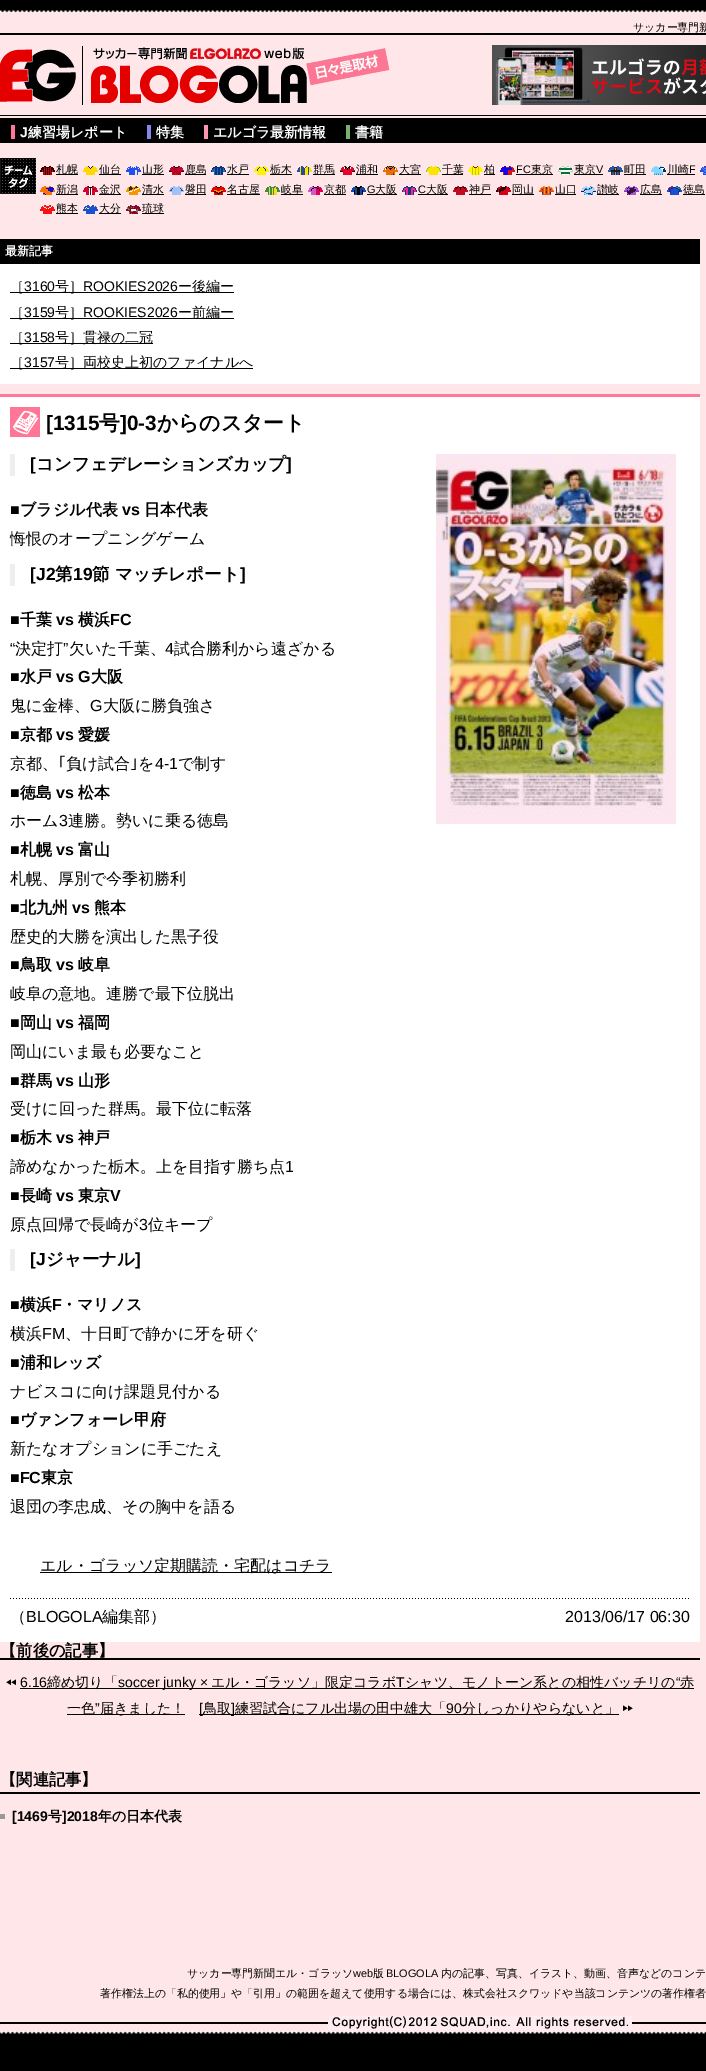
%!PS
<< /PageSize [706 2071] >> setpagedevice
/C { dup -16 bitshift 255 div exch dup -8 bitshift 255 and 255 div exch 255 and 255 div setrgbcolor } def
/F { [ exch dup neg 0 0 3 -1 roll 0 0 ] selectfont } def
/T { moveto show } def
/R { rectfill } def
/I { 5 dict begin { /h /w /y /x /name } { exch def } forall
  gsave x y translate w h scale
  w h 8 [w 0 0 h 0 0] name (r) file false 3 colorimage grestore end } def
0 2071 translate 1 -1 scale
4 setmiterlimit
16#000000 C
0 0 706 2071 R
16#FFE7E9 C
0 13 706 2018 R
(1.rgb) 0 10 706 3 I
(2.rgb) 0 2031 706 3 I
16#000000 C
0 33 706 2 R
/WenQuanYiZenHei-Medium 10.92 F
(サッカー専門新) 633 31 T
(3.rgb) 0 46 390 59 I
(4.rgb) 492 45 214 60 I
0 115 706 1 R
0 118 706 25 R
16#FF7799 C
11 125 4 14 R
/LiberationSans-Bold 14 F
16#FFFFFF C
(J) 20 137 T
/WenQuanYiZenHei-Bold 14 F
(練習場レポート) 28 137 T
16#8686EE C
147 125 4 14 R
16#FFFFFF C
(特集) 156 137 T
16#FD97AF C
204 125 4 14 R
16#FFFFFF C
(エルゴラ最新情報) 213 137 T
16#78B26E C
346 125 4 14 R
16#FFFFFF C
(書籍) 355 137 T
(5.rgb) 0 158 36 36 I
(6.rgb) 40 166 15 9 I
16#000000 C
56 174 22 1 R
/WenQuanYiZenHei-Medium 10.92 F
(札幌) 56 173 T
(7.rgb) 83 166 15 9 I
99 174 22 1 R
(仙台) 99 173 T
(8.rgb) 126 166 15 9 I
142 174 22 1 R
(山形) 142 173 T
(9.rgb) 169 166 15 9 I
185 174 21 1 R
(鹿島) 185 173 T
(10.rgb) 211 166 15 9 I
227 174 22 1 R
(水戸) 227 173 T
(11.rgb) 254 166 15 9 I
270 174 22 1 R
(栃木) 270 173 T
(12.rgb) 297 166 15 9 I
313 174 22 1 R
(群馬) 313 173 T
(13.rgb) 340 166 15 9 I
356 174 22 1 R
(浦和) 356 173 T
(14.rgb) 383 166 15 9 I
399 174 22 1 R
(大宮) 399 173 T
(15.rgb) 426 166 15 9 I
442 174 21 1 R
(千葉) 442 173 T
(16.rgb) 468 166 15 9 I
484 174 11 1 R
(柏) 484 173 T
(17.rgb) 500 166 15 9 I
/LiberationSans-Regular 10.92 F
(FC) 516 173 T
516 174 37 1 R
/WenQuanYiZenHei-Medium 10.92 F
(東京) 531 173 T
(18.rgb) 558 166 15 9 I
574 174 29 1 R
(東京) 574 173 T
/LiberationSans-Regular 10.92 F
(V) 596 173 T
(19.rgb) 608 166 15 9 I
624 174 22 1 R
/WenQuanYiZenHei-Medium 10.92 F
(町田) 624 173 T
(20.rgb) 651 166 15 9 I
667 174 28 1 R
(川崎) 667 173 T
/LiberationSans-Regular 10.92 F
(F) 689 173 T
(21.rgb) 700 166 6 9 I
(22.rgb) 40 186 15 9 I
56 194 22 1 R
/WenQuanYiZenHei-Medium 10.92 F
(新潟) 56 193 T
(23.rgb) 83 186 15 9 I
99 194 22 1 R
(金沢) 99 193 T
(24.rgb) 126 186 15 9 I
142 194 22 1 R
(清水) 142 193 T
(25.rgb) 169 186 15 9 I
185 194 21 1 R
(磐田) 185 193 T
(26.rgb) 211 186 15 9 I
227 194 33 1 R
(名古屋) 227 193 T
(27.rgb) 265 186 15 9 I
281 194 22 1 R
(岐阜) 281 193 T
(28.rgb) 308 186 15 9 I
324 194 22 1 R
(京都) 324 193 T
(29.rgb) 351 186 15 9 I
/LiberationSans-Regular 10.92 F
(G) 367 193 T
367 194 30 1 R
/WenQuanYiZenHei-Medium 10.92 F
(大阪) 375 193 T
(30.rgb) 402 186 15 9 I
/LiberationSans-Regular 10.92 F
(C) 418 193 T
418 194 30 1 R
/WenQuanYiZenHei-Medium 10.92 F
(大阪) 426 193 T
(31.rgb) 453 186 15 9 I
469 194 22 1 R
(神戸) 469 193 T
(32.rgb) 496 186 15 9 I
512 194 22 1 R
(岡山) 512 193 T
(33.rgb) 539 186 15 9 I
555 194 21 1 R
(山口) 555 193 T
(34.rgb) 581 186 15 9 I
597 194 22 1 R
(讃岐) 597 193 T
(35.rgb) 624 186 15 9 I
640 194 22 1 R
(広島) 640 193 T
(36.rgb) 667 186 15 9 I
683 194 22 1 R
(徳島) 683 193 T
(37.rgb) 40 205 15 9 I
56 213 22 1 R
(熊本) 56 212 T
(38.rgb) 83 205 15 9 I
99 213 22 1 R
(大分) 99 212 T
(39.rgb) 126 205 15 9 I
142 213 22 1 R
(琉球) 142 212 T
0 239 700 25 R
/WenQuanYiZenHei-Bold 12 F
16#FFFFFF C
(最新記事) 5 255 T
0 264 700 120 R
16#000000 C
10 292 224 1 R
/WenQuanYiZenHei-Medium 14 F
(［) 10 291 T
/LiberationSans-Regular 14 F
(3160) 24 291 T
/WenQuanYiZenHei-Medium 14 F
(号］) 55 291 T
/LiberationSans-Regular 14 F
(ROOKIES2026) 83 291 T
/WenQuanYiZenHei-Medium 14 F
(ー後編ー) 178 291 T
10 318 224 1 R
(［) 10 317 T
/LiberationSans-Regular 14 F
(3159) 24 317 T
/WenQuanYiZenHei-Medium 14 F
(号］) 55 317 T
/LiberationSans-Regular 14 F
(ROOKIES2026) 83 317 T
/WenQuanYiZenHei-Medium 14 F
(ー前編ー) 178 317 T
10 343 143 1 R
(［) 10 342 T
/LiberationSans-Regular 14 F
(3158) 24 342 T
/WenQuanYiZenHei-Medium 14 F
(号］貫禄の二冠) 55 342 T
10 368 243 1 R
(［) 10 367 T
/LiberationSans-Regular 14 F
(3157) 24 367 T
/WenQuanYiZenHei-Medium 14 F
(号］両校史上初のファイナルへ) 55 367 T
16#FFFFFF C
0 397 700 1245 R
16#FF7799 C
0 394 700 3 R
(40.rgb) 10 407 30 30 I
/LiberationSans-Bold 20.75 F
16#000000 C
([1315) 46 430 T
/WenQuanYiZenHei-Bold 20.75 F
(号) 99 430 T
/LiberationSans-Bold 20.75 F
(]0-3) 120 430 T
/WenQuanYiZenHei-Bold 20.75 F
(からのスタート) 157 430 T
16#EEEEEE C
10 454 5 22 R
/LiberationSans-Bold 17.5 F
16#000000 C
([) 30 470 T
/WenQuanYiZenHei-Bold 17.5 F
(コンフェデレーションズカップ) 36 470 T
/LiberationSans-Bold 17.5 F
(]) 286 470 T
(41.rgb) 436 454 240 370 I
/LiberationSans-Bold 16 F
(■) 10 515 T
/WenQuanYiZenHei-Bold 16 F
(ブラジル代表) 20 515 T
/LiberationSans-Bold 16 F
(vs) 122 515 T
/WenQuanYiZenHei-Bold 16 F
(日本代表) 144 515 T
/WenQuanYiZenHei-Medium 16 F
(悔恨のオープニングゲーム) 10 544 T
16#EEEEEE C
10 564 5 22 R
/LiberationSans-Bold 17.5 F
16#000000 C
([J2) 30 580 T
/WenQuanYiZenHei-Bold 17.5 F
(第) 55 580 T
/LiberationSans-Bold 17.5 F
(19) 73 580 T
/WenQuanYiZenHei-Bold 17.5 F
(節 マッチレポート) 92 580 T
/LiberationSans-Bold 17.5 F
(]) 240 580 T
/LiberationSans-Bold 16 F
(■) 10 625 T
/WenQuanYiZenHei-Bold 16 F
(千葉) 20 625 T
/LiberationSans-Bold 16 F
(vs) 56 625 T
/WenQuanYiZenHei-Bold 16 F
(横浜) 78 625 T
/LiberationSans-Bold 16 F
(FC) 110 625 T
/LiberationSans-Regular 16 F
(“) 10 654 T
/WenQuanYiZenHei-Medium 16 F
(決定打) 15 654 T
/LiberationSans-Regular 16 F
(”) 63 654 T
/WenQuanYiZenHei-Medium 16 F
(欠いた千葉、) 69 654 T
/LiberationSans-Regular 16 F
(4) 165 654 T
/WenQuanYiZenHei-Medium 16 F
(試合勝利から遠ざかる) 174 654 T
/LiberationSans-Bold 16 F
(■) 10 682 T
/WenQuanYiZenHei-Bold 16 F
(水戸) 20 682 T
/LiberationSans-Bold 16 F
(vs G) 56 682 T
/WenQuanYiZenHei-Bold 16 F
(大阪) 91 682 T
/WenQuanYiZenHei-Medium 16 F
(鬼に金棒、) 10 711 T
/LiberationSans-Regular 16 F
(G) 90 711 T
/WenQuanYiZenHei-Medium 16 F
(大阪に勝負強さ) 103 711 T
/LiberationSans-Bold 16 F
(■) 10 740 T
/WenQuanYiZenHei-Bold 16 F
(京都) 20 740 T
/LiberationSans-Bold 16 F
(vs) 56 740 T
/WenQuanYiZenHei-Bold 16 F
(愛媛) 78 740 T
/WenQuanYiZenHei-Medium 16 F
(京都、) 10 769 T
/IPAPGothic-Regular 16 F
(｢) 58 769 T
/WenQuanYiZenHei-Medium 16 F
(負け試合) 66 769 T
/IPAPGothic-Regular 16 F
(｣) 130 769 T
/WenQuanYiZenHei-Medium 16 F
(を) 138 769 T
/LiberationSans-Regular 16 F
(4-1) 155 769 T
/WenQuanYiZenHei-Medium 16 F
(で制す) 178 769 T
/LiberationSans-Bold 16 F
(■) 10 798 T
/WenQuanYiZenHei-Bold 16 F
(徳島) 20 798 T
/LiberationSans-Bold 16 F
(vs) 56 798 T
/WenQuanYiZenHei-Bold 16 F
(松本) 78 798 T
/WenQuanYiZenHei-Medium 16 F
(ホーム) 10 826 T
/LiberationSans-Regular 16 F
(3) 59 826 T
/WenQuanYiZenHei-Medium 16 F
(連勝。勢いに乗る徳島) 68 826 T
/LiberationSans-Bold 16 F
(■) 10 855 T
/WenQuanYiZenHei-Bold 16 F
(札幌) 20 855 T
/LiberationSans-Bold 16 F
(vs) 56 855 T
/WenQuanYiZenHei-Bold 16 F
(富山) 78 855 T
/WenQuanYiZenHei-Medium 16 F
(札幌、厚別で今季初勝利) 10 884 T
/LiberationSans-Bold 16 F
(■) 10 913 T
/WenQuanYiZenHei-Bold 16 F
(北九州) 20 913 T
/LiberationSans-Bold 16 F
(vs) 72 913 T
/WenQuanYiZenHei-Bold 16 F
(熊本) 94 913 T
/WenQuanYiZenHei-Medium 16 F
(歴史的大勝を演出した黒子役) 10 942 T
/LiberationSans-Bold 16 F
(■) 10 970 T
/WenQuanYiZenHei-Bold 16 F
(鳥取) 20 970 T
/LiberationSans-Bold 16 F
(vs) 56 970 T
/WenQuanYiZenHei-Bold 16 F
(岐阜) 78 970 T
/WenQuanYiZenHei-Medium 16 F
(岐阜の意地。連勝で最下位脱出) 10 999 T
/LiberationSans-Bold 16 F
(■) 10 1028 T
/WenQuanYiZenHei-Bold 16 F
(岡山) 20 1028 T
/LiberationSans-Bold 16 F
(vs) 56 1028 T
/WenQuanYiZenHei-Bold 16 F
(福岡) 78 1028 T
/WenQuanYiZenHei-Medium 16 F
(岡山にいま最も必要なこと) 10 1057 T
/LiberationSans-Bold 16 F
(■) 10 1086 T
/WenQuanYiZenHei-Bold 16 F
(群馬) 20 1086 T
/LiberationSans-Bold 16 F
(vs) 56 1086 T
/WenQuanYiZenHei-Bold 16 F
(山形) 78 1086 T
/WenQuanYiZenHei-Medium 16 F
(受けに回った群馬。最下位に転落) 10 1114 T
/LiberationSans-Bold 16 F
(■) 10 1143 T
/WenQuanYiZenHei-Bold 16 F
(栃木) 20 1143 T
/LiberationSans-Bold 16 F
(vs) 56 1143 T
/WenQuanYiZenHei-Bold 16 F
(神戸) 78 1143 T
/WenQuanYiZenHei-Medium 16 F
(諦めなかった栃木。上を目指す勝ち点) 10 1172 T
/LiberationSans-Regular 16 F
(1) 285 1172 T
/LiberationSans-Bold 16 F
(■) 10 1201 T
/WenQuanYiZenHei-Bold 16 F
(長崎) 20 1201 T
/LiberationSans-Bold 16 F
(vs) 56 1201 T
/WenQuanYiZenHei-Bold 16 F
(東京) 78 1201 T
/LiberationSans-Bold 16 F
(V) 110 1201 T
/WenQuanYiZenHei-Medium 16 F
(原点回帰で長崎が) 10 1230 T
/LiberationSans-Regular 16 F
(3) 139 1230 T
/WenQuanYiZenHei-Medium 16 F
(位キープ) 148 1230 T
16#EEEEEE C
10 1249 5 22 R
/LiberationSans-Bold 17.5 F
16#000000 C
([J) 30 1265 T
/WenQuanYiZenHei-Bold 17.5 F
(ジャーナル) 46 1265 T
/LiberationSans-Bold 17.5 F
(]) 135 1265 T
/LiberationSans-Bold 16 F
(■) 10 1310 T
/WenQuanYiZenHei-Bold 16 F
(横浜) 20 1310 T
/LiberationSans-Bold 16 F
(F) 52 1310 T
/WenQuanYiZenHei-Bold 16 F
(・マリノス) 61 1310 T
/WenQuanYiZenHei-Medium 16 F
(横浜) 10 1339 T
/LiberationSans-Regular 16 F
(FM) 42 1339 T
/WenQuanYiZenHei-Medium 16 F
(、十日町で静かに牙を研ぐ) 65 1339 T
/LiberationSans-Bold 16 F
(■) 10 1368 T
/WenQuanYiZenHei-Bold 16 F
(浦和レッズ) 20 1368 T
/WenQuanYiZenHei-Medium 16 F
(ナビスコに向け課題見付かる) 10 1397 T
/LiberationSans-Bold 16 F
(■) 10 1425 T
/WenQuanYiZenHei-Bold 16 F
(ヴァンフォーレ甲府) 20 1425 T
/WenQuanYiZenHei-Medium 16 F
(新たなオプションに手ごたえ) 10 1454 T
/LiberationSans-Bold 16 F
(■FC) 10 1483 T
/WenQuanYiZenHei-Bold 16 F
(東京) 41 1483 T
/WenQuanYiZenHei-Medium 16 F
(退団の李忠成、その胸中を語る) 10 1512 T
40 1572 292 1 R
(エル・ゴラッソ定期購読・宅配はコチラ) 40 1571 T
(42.rgb) 10 1598 679 1 I
(（) 10 1622 T
/LiberationSans-Regular 16 F
(BLOGOLA) 26 1622 T
/WenQuanYiZenHei-Medium 16 F
(編集部）) 102 1622 T
/LiberationSans-Regular 16 F
(2013/06/17 06:30) 565 1622 T
0 1658 700 2 R
/WenQuanYiZenHei-Bold 16.25 F
(【前後の記事】) 0 1656 T
(43.rgb) 6 1679 10 6 I
/LiberationSans-Regular 14 F
(6.16) 20 1687 T
20 1688 674 1 R
/WenQuanYiZenHei-Medium 14 F
(締め切り「) 47 1687 T
/LiberationSans-Regular 14 F
(soccer junky ×) 118 1687 T
/WenQuanYiZenHei-Medium 14 F
(エル・ゴラッソ」限定コラボ) 211 1687 T
/LiberationSans-Regular 14 F
(T) 396 1687 T
/WenQuanYiZenHei-Medium 14 F
(シャツ、モノトーン系との相性バッチリの) 405 1687 T
/LiberationSans-Regular 14 F
(“) 676 1687 T
/WenQuanYiZenHei-Medium 14 F
(赤) 680 1687 T
67 1714 118 1 R
(一色) 67 1713 T
/LiberationSans-Regular 14 F
(”) 95 1713 T
/WenQuanYiZenHei-Medium 14 F
(届きました！) 100 1713 T
199 1714 420 1 R
/LiberationSans-Regular 14 F
([) 199 1713 T
/WenQuanYiZenHei-Medium 14 F
(鳥取) 203 1713 T
/LiberationSans-Regular 14 F
(]) 231 1713 T
/WenQuanYiZenHei-Medium 14 F
(練習試合にフル出場の田中雄大「) 235 1713 T
/LiberationSans-Regular 14 F
(90) 446 1713 T
/WenQuanYiZenHei-Medium 14 F
(分しっかりやらないと」) 462 1713 T
(44.rgb) 623 1705 10 6 I
0 1792 700 2 R
/WenQuanYiZenHei-Bold 16.25 F
(【関連記事】) 0 1785 T
16#999999 C
0 1814 5 5 R
/LiberationSans-Bold 14 F
16#000000 C
([1469) 12 1821 T
/WenQuanYiZenHei-Bold 14 F
(号) 48 1821 T
/LiberationSans-Bold 14 F
(]2018) 62 1821 T
/WenQuanYiZenHei-Bold 14 F
(年の日本代表) 98 1821 T
/WenQuanYiZenHei-Medium 10.92 F
(サッカー専門新聞エル・ゴラッソ) 187 1977 T
/LiberationSans-Regular 10.92 F
(web) 353 1977 T
/WenQuanYiZenHei-Medium 10.92 F
(版) 373 1977 T
/LiberationSans-Regular 10.92 F
(BLOGOLA) 386 1977 T
/WenQuanYiZenHei-Medium 10.92 F
(内の記事、写真、イラスト、動画、音声などのコンテ) 441 1977 T
(著作権法上の「私的使用」や「引用」の範囲を超えて使用する場合には、株式会社スクワッドや当該コンテンツの著作権者) 100 1997 T
0 2022 706 2 R
(45.rgb) 328 2016 304 14 I
showpage
